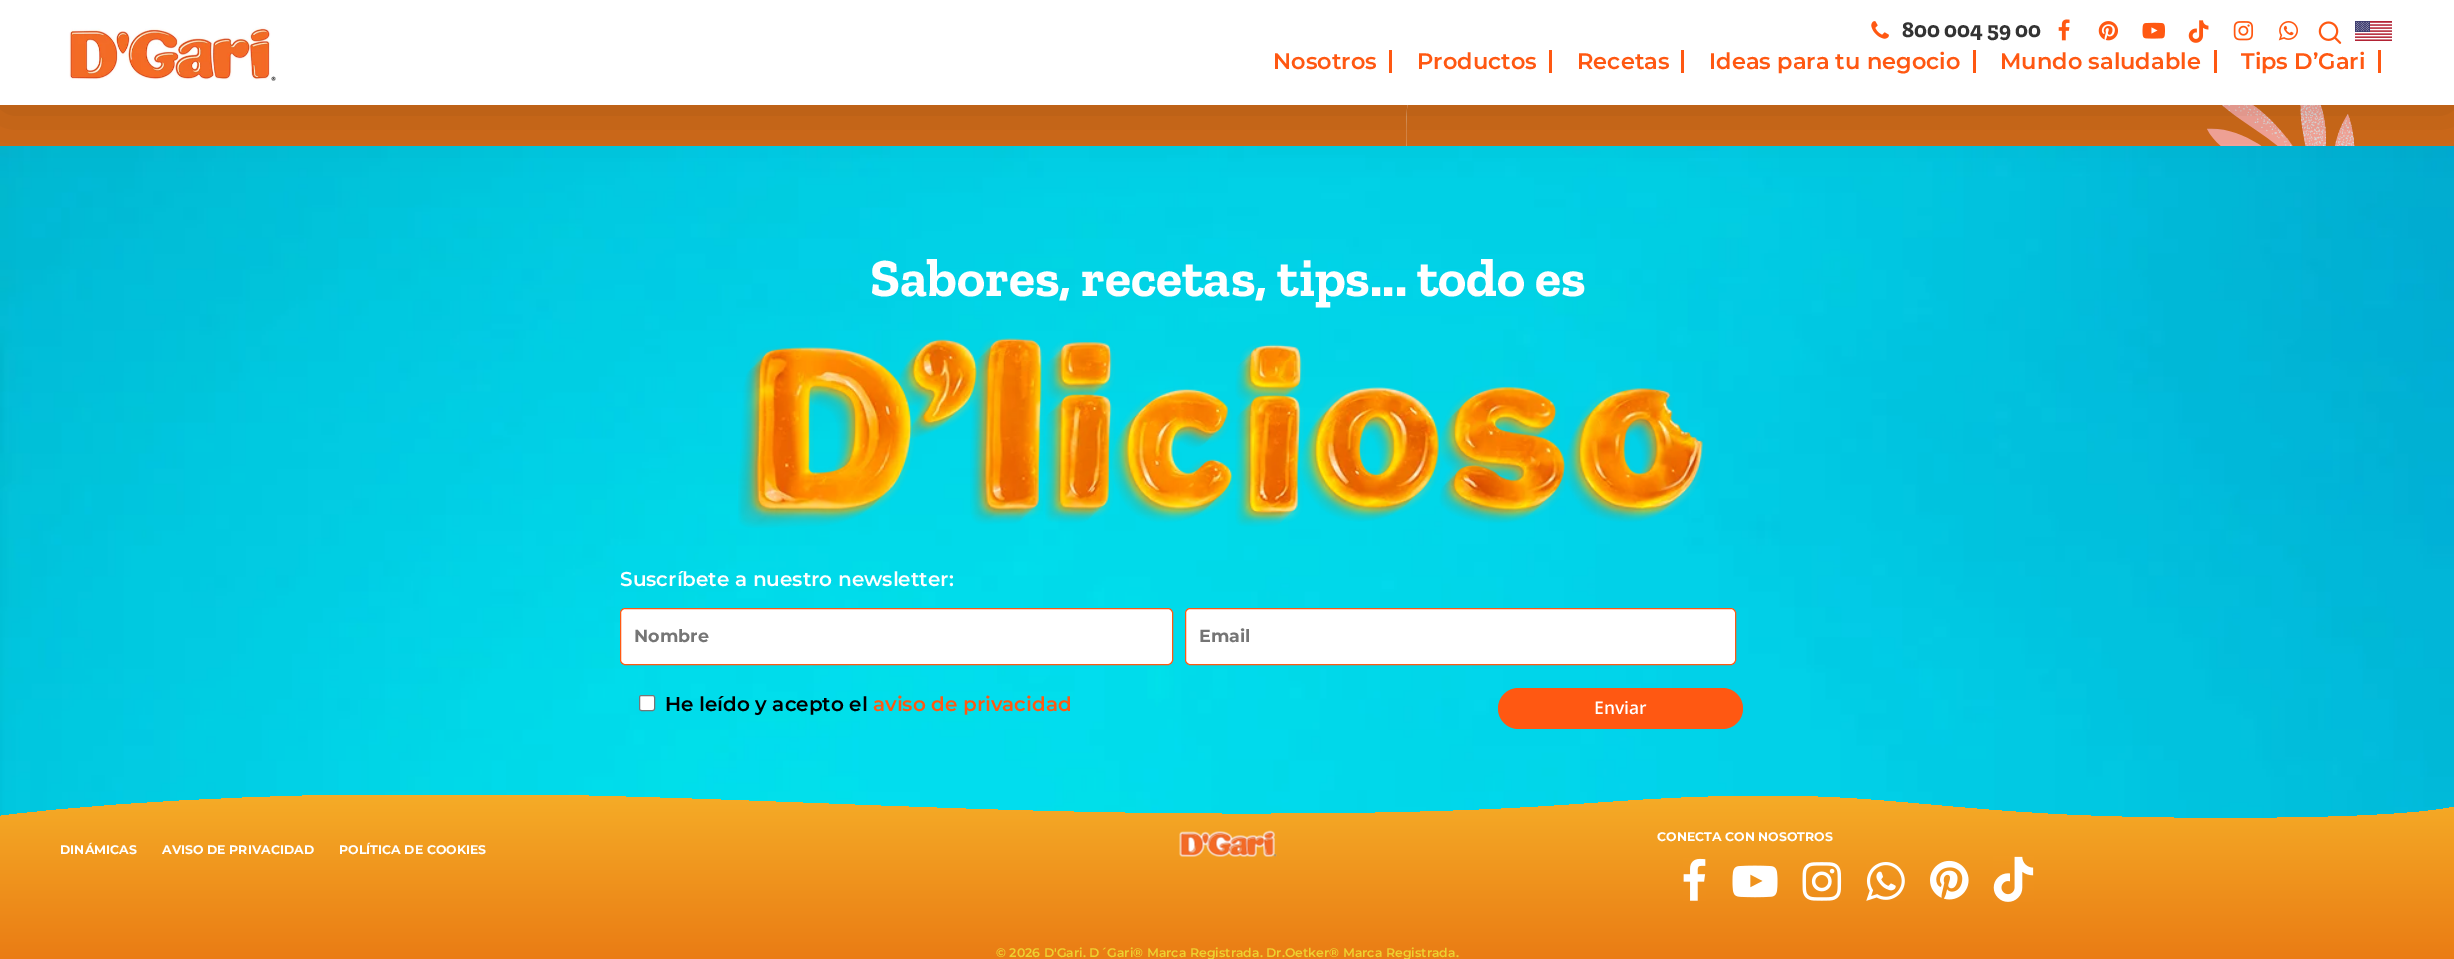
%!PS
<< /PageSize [2454 959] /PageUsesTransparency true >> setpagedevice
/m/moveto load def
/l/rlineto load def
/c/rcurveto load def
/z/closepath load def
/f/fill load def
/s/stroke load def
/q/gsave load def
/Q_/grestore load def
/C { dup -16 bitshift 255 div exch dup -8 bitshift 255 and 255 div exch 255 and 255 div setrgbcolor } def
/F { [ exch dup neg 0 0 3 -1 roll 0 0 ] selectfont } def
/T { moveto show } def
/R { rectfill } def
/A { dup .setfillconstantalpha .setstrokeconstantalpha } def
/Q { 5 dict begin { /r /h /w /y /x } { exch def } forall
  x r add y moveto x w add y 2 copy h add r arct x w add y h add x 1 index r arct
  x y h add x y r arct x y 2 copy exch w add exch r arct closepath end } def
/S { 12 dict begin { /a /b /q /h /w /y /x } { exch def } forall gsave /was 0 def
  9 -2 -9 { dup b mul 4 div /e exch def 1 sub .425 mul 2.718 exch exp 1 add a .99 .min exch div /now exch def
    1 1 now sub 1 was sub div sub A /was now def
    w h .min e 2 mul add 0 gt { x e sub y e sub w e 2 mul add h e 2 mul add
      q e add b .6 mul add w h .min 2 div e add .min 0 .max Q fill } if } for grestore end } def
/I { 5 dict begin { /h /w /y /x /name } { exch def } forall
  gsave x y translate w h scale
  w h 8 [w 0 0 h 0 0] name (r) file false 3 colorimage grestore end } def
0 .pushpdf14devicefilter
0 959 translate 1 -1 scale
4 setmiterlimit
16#F9F9F5 C
0 0 2454 959 R
(11.rgb) 0 105 2454 41 I
(12.rgb) 0 146 2454 693 I
16#000000 C
0 -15 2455 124 0 28 .15 S
16#FFFFFF C
0 0 2454 105 R
(1.rgb) 69 27 207 54 I
(2.rgb) 2318 21 24 23 I
(3.rgb) 2355 21 37 20 I
(4.rgb) 1871 21 18 18 I
/ZillaSlab-Bold 22.5 F
16#333333 C
(800 004 59 00) 1902 37 T
(5.rgb) 2058 19 12 22 I
(6.rgb) 2098 21 20 20 I
(7.rgb) 2142 22 23 17 I
(8.rgb) 2188 20 21 23 I
(9.rgb) 2233 21 21 20 I
(10.rgb) 2278 21 20 20 I
16#FF5812 C
1389 50 3 23 R
/Montserrat-SemiBold 22.5 F
(Nosotros) 1273 69 T
1549 50 3 23 R
(Productos) 1417 69 T
1681 50 3 23 R
(Recetas) 1577 69 T
1973 50 3 23 R
(Ideas para tu negocio) 1709 69 T
2214 50 3 23 R
(Mundo saludable) 2000 69 T
2378 50 3 23 R
(Tips D’Gari) 2241 69 T
/ZillaSlab-Bold 53.75 F
16#FFFFFF C
(Sabores, recetas, tips... todo es) 870 296 T
(13.rgb) 738 338 968 190 I
/Montserrat-SemiBold 20 F
(Suscríbete a nuestro newsletter:) 620 586 T
620.5 608.5 552 56 4.5 Q q f Q_
16#FF5812 C
s
/Montserrat-Bold 17.5 F
16#757575 C
(Nombre) 634 642 T
16#FFFFFF C
1185.5 608.5 550 56 4.5 Q q f Q_
16#FF5812 C
s
16#757575 C
(Email) 1199 642 T
16#FFFFFF C
639.5 695.5 15 15 2 Q q f Q_
16#767676 C
s
/Montserrat-SemiBold 20 F
16#000000 C
(He leído y acepto el) 665 711 T
16#FF5812 C
(aviso de privacidad) 873 711 T
1498 688 245 41 20.5 Q f
/OpenSans-SemiBold 17.5 F
16#FFFFFF C
(Enviar) 1594 714 T
q
0 795 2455 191 rectclip
q 1 816 m 138 -17 347 -25 542 -21 c 251 5 424 18 679 19 c 352 1 364 -17 544 -18 c 138 0 201 20 408 22 c 200 2 263 -7 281 -11 c -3 24 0 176 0 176 c -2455 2 l z eoclip newpath
<< /ShadingType 2 /ColorSpace /DeviceRGB /Coords [1228 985 1228 794] /Extend [true true] /Function << /FunctionType 2 /Domain [0 1] /C0 [.91 .455 .067] /C1 [.961 .675 .153] /N 1 >> >> shfill Q_
Q_
(14.rgb) 1179 830 98 27 I
/Montserrat-Bold 12.5 F
(CONECTA CON NOSOTROS) 1657 841 T
(15.rgb) 1683 858 23 43 I
(16.rgb) 1732 865 46 33 I
(17.rgb) 1802 862 40 39 I
(18.rgb) 1866 862 39 39 I
(19.rgb) 1930 860 39 40 I
(20.rgb) 1993 856 41 46 I
(DINÁMICAS) 60 854 T
(AVISO DE PRIVACIDAD) 162 854 T
(POLÍTICA DE COOKIES) 339 854 T
/Montserrat-SemiBold 12.5 F
16#EDD131 C
(© 2026 D'Gari. D´Gari® Marca Registrada. Dr.Oetker® Marca Registrada.) 996 957 T
.poppdf14devicefilter showpage
